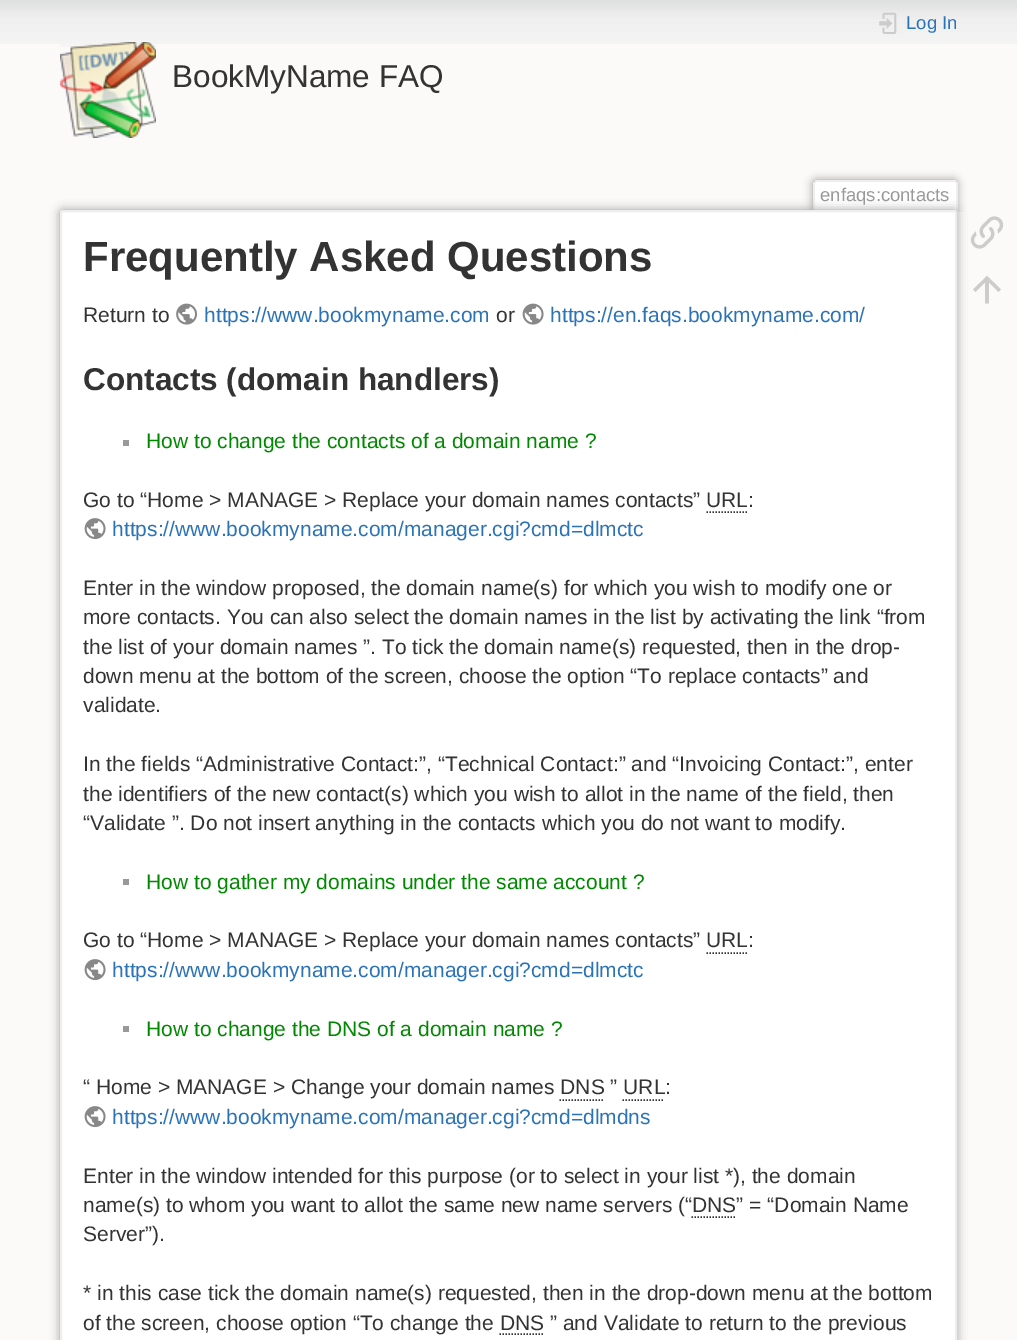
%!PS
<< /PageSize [1017 1340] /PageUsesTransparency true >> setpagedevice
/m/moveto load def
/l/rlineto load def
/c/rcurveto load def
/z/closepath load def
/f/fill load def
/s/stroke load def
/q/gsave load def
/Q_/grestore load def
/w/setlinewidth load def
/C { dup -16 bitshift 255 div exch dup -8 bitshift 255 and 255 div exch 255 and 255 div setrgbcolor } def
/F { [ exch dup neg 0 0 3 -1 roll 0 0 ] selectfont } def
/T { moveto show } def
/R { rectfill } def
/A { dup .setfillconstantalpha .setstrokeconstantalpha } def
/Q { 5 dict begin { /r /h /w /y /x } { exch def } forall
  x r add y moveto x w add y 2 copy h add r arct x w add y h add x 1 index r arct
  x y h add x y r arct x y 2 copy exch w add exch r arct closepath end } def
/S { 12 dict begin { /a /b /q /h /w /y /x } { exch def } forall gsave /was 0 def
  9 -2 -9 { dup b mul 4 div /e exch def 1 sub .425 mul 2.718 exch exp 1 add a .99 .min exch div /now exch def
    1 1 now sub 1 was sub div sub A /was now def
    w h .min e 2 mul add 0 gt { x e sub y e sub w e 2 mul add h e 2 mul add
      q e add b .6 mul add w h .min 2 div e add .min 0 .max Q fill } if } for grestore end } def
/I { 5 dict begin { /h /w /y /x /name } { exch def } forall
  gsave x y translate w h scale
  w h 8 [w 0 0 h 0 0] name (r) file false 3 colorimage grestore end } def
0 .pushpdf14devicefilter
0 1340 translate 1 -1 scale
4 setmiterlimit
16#FBFAF9 C
0 0 1017 1340 R
(1.rgb) 0 0 1017 44 I
(2.rgb) 879 12 18 22 I
/LiberationSans-Regular 18.5 F
16#2B73B7 C
(Log In) 906 29 T
(3.rgb) 60 42 96 96 I
/LiberationSans-Regular 31.5 F
16#333333 C
(BookMyName FAQ) 172 87 T
q
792 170 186 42 rectclip
16#999999 C
813 180 144 32 3 4.5 1 S
Q_
16#FFFFFF C
816.5 182 m 138 0 l 1 0 1.5 .5 1.5 1.5 c 0 28.5 l -141 0 l 0 -28.5 l 0 -1 .5 -1.5 1.5 -1.5 c z f
16#EEEEEE C
815 180 141 2 R
956 182 2 30 R
813 182 2 30 R
/LiberationSans-Regular 18.5 F
16#999999 C
(enfaqs:contacts) 820 201 T
60 210 897 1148 3 5 1 S
16#FFFFFF C
61 211 895 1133 2 Q q f Q_
16#EEEEEE C
2 w
s
/LiberationSans-Bold 42 F
16#333333 C
(Frequently Asked Questions) 83 271 T
/LiberationSans-Regular 21 F
(Return to) 83 322 T
(4.rgb) 176 303 22 22 I
16#2B73B7 C
(https://www.bookmyname.com) 204 322 T
16#333333 C
(or) 496 322 T
(5.rgb) 522 303 22 22 I
16#2B73B7 C
(https://en.faqs.bookmyname.com/) 550 322 T
/LiberationSans-Bold 31.5 F
16#333333 C
(Contacts \(domain handlers\)) 83 390 T
16#999999 C
123 440 6 6 R
/LiberationSans-Regular 21 F
16#008800 C
(How to change the contacts of a domain name ?) 146 448 T
16#333333 C
(Go to “Home > MANAGE > Replace your domain names contacts” URL:) 83 507 T
1.5 w
[1.5 1.5] 0 setdash
706.5 512 m 42 0 l s
(6.rgb) 84 518 22 22 I
16#2B73B7 C
(https://www.bookmyname.com/manager.cgi?cmd=dlmctc) 112 536 T
16#333333 C
(Enter in the window proposed, the domain name\(s\) for which you wish to modify one or) 83 595 T
(more contacts. You can also select the domain names in the list by activating the link “from) 83 624 T
(the list of your domain names ”. To tick the domain name\(s\) requested, then in the drop-) 83 654 T
(down menu at the bottom of the screen, choose the option “To replace contacts” and) 83 683 T
(validate.) 83 712 T
(In the fields “Administrative Contact:”, “Technical Contact:” and “Invoicing Contact:”, enter) 83 771 T
(the identifiers of the new contact\(s\) which you wish to allot in the name of the field, then) 83 801 T
(“Validate ”. Do not insert anything in the contacts which you do not want to modify.) 83 830 T
16#999999 C
123 879 6 6 R
16#008800 C
(How to gather my domains under the same account ?) 146 889 T
16#333333 C
(Go to “Home > MANAGE > Replace your domain names contacts” URL:) 83 947 T
706.5 953 m 42 0 l s
(6.rgb) 84 959 22 22 I
16#2B73B7 C
(https://www.bookmyname.com/manager.cgi?cmd=dlmctc) 112 977 T
16#999999 C
123 1026 6 6 R
16#008800 C
(How to change the DNS of a domain name ?) 146 1036 T
16#333333 C
(“ Home > MANAGE > Change your domain names DNS ” URL:) 83 1094 T
559.5 1100 m 45 0 l s
622.5 1100 m 42 0 l s
(6.rgb) 84 1106 22 22 I
16#2B73B7 C
(https://www.bookmyname.com/manager.cgi?cmd=dlmdns) 112 1124 T
16#333333 C
(Enter in the window intended for this purpose \(or to select in your list *\), the domain) 83 1183 T
(name\(s\) to whom you want to allot the same new name servers \(“DNS” = “Domain Name) 83 1212 T
691.5 1217 m 45 0 l s
(Server”\).) 83 1241 T
(* in this case tick the domain name\(s\) requested, then in the drop-down menu at the bottom) 83 1300 T
(of the screen, choose option “To change the DNS ” and Validate to return to the previous) 83 1330 T
499.5 1334 m 43.5 0 l s
(7.rgb) 970 216 34 33 I
16#CCCCCC C
989 303.5 m -4 0 l 0 -21 l -9.5 9.5 l -2.5 -2.5 l 14 -13.5 l 14 13.5 l -2.5 2.5 l -9.5 -9.5 l z f
.poppdf14devicefilter showpage
